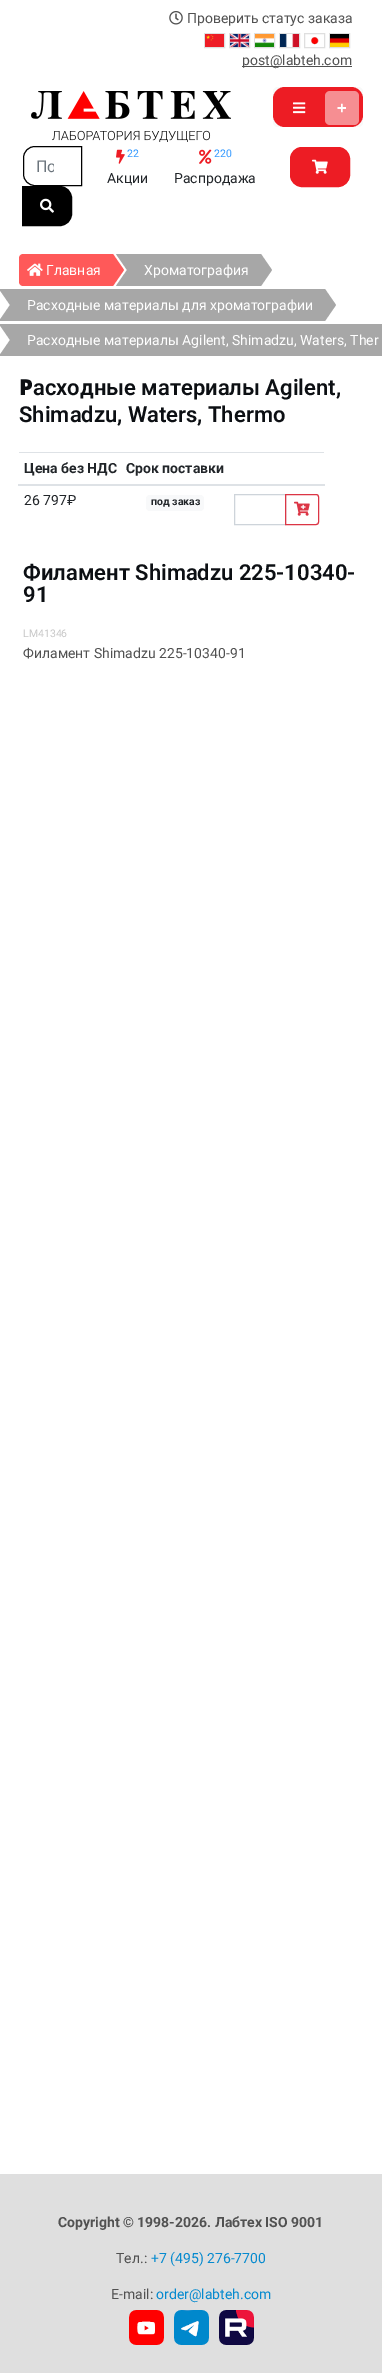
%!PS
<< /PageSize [382 2373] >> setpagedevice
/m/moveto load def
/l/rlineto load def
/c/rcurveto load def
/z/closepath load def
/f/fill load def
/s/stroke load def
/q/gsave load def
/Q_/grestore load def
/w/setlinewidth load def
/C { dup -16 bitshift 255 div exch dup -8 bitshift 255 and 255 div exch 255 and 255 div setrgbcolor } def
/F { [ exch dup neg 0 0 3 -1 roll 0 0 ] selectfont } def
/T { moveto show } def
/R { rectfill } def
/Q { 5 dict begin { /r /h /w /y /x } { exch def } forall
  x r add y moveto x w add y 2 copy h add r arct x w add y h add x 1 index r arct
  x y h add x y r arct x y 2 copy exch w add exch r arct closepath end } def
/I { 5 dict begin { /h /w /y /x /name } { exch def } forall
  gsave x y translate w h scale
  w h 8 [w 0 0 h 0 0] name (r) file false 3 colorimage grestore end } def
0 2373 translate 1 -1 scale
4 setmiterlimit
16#FFFFFF C
0 0 382 2373 R
(1.rgb) 169 11 14 14 I
/Roboto-Regular 14 F
16#515151 C
(Проверить статус заказа) 187 23 T
16#DFDFDF C
204.5 33.5 20 14 rectstroke
229.5 33.5 20 14 rectstroke
254.5 33.5 20 14 rectstroke
279.5 33.5 20 14 rectstroke
304.5 33.5 20 14 rectstroke
329.5 33.5 20 14 rectstroke
(2.rgb) 205 34 19 13 I
(3.rgb) 230 34 19 13 I
(4.rgb) 255 34 19 13 I
(5.rgb) 280 34 19 13 I
(6.rgb) 311 37 8 8 I
(7.rgb) 330 34 19 13 I
16#515151 C
242 66 110 1 R
(post@labteh.com) 242 65 T
(8.rgb) 31 91 200 51 I
16#F8F8F8 C
273 87 90 40 5 Q f
16#ED1C24 C
273 87 90 40 12 Q f
(9.rgb) 293 102 13 12 I
16#F68E92 C
325 91 34 34 5 Q f
/DejaVuSansMono-Bold 16 F
16#FFFFFF C
(+) 337 113 T
16#000000 C
35 146.5 m 46.5 0 l 0 39 l -46.5 0 l -6.5 0 -11.5 -5 -11.5 -11.5 c 0 -16 l 0 -6.5 5 -11.5 11.5 -11.5 c z s
q
36 157 18 19 rectclip
/Roboto-Regular 16 F
16#6C757D C
(По) 36 172 T
Q_
23 187 m 37 0 l 6 0 11 5 11 11 c 0 16 l 0 6 -5 11 -11 11 c -37 0 l z q f Q_
2 w
s
(10.rgb) 40 198 14 15 I
(11.rgb) 116 149 9 15 I
/Roboto-Regular 10.5 F
16#3399FF C
(22) 127 157 T
/Roboto-Regular 14 F
16#212529 C
(Акции) 107 183 T
(12.rgb) 199 149 13 15 I
/Roboto-Regular 10.5 F
16#3399FF C
(220) 214 157 T
/Roboto-Regular 14 F
16#212529 C
(Распродажа) 174 183 T
16#ED1C24 C
290.5 147.5 59 39 11.5 Q q f Q_
1 w
s
(13.rgb) 312 159 16 15 I
16#FF5959 C
23 254 m 90 0 l 0 32 l -90 0 l -2 0 -4 -2 -4 -4 c 0 -24 l 0 -2 2 -4 4 -4 c z f
(14.rgb) 27 263 16 13 I
16#FFFFFF C
(Главная) 46 275 T
16#FF5959 C
113 286 m 0 -32 l 11 16 l z f
16#A7A7A7 C
138 254 123 32 R
116 254 m 22 0 l -11 16 l z f
127 254 11 32 R
138 286 m -22 0 l 11 -16 l z f
16#FFFFFF C
(Хроматография) 144 275 T
16#A7A7A7 C
261 286 m 0 -32 l 11 16 l z f
21 289 304 32 R
-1 289 m 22 0 l -11 16 l z f
10 289 11 32 R
21 321 m -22 0 l 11 -16 l z f
16#FFFFFF C
(Расходные материалы для хроматографии) 27 310 T
16#A7A7A7 C
325 321 m 0 -32 l 11 16 l z f
21 324 361 32 R
-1 324 m 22 0 l -11 16 l z f
10 324 11 32 R
21 356 m -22 0 l 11 -16 l z f
16#FFFFFF C
(Расходные материалы Agilent, Shimadzu, Waters, Ther) 27 345 T
/NotoSans-Black 22 F
16#0C0F13 C
(Р) 19 395 T
/Roboto-SemiBold 22 F
(асходные материалы Agilent,) 33 395 T
(Shimadzu, Waters, Thermo) 19 422 T
16#DEE2E6 C
19 452 305 1 R
18 484 307 2 R
/Roboto-Bold 14 F
16#212529 C
(Цена без НДС) 24 473 T
(Срок поставки) 126 473 T
/Roboto-Regular 14 F
(26 797₽) 24 505 T
16#F8F9FA C
146 495 58 16 4 Q f
/Roboto-Bold 10.5 F
16#212529 C
(под заказ) 151 505 T
16#CED4DA C
234.5 494.5 51 30 rectstroke
16#DC3545 C
285.5 494.5 m 30.5 0 l 1.5 0 2.5 1 2.5 2.5 c 0 25 l 0 1.5 -1 2.5 -2.5 2.5 c -30.5 0 l z s
(15.rgb) 294 501 16 15 I
/Roboto-SemiBold 22 F
16#0C0F13 C
(Филамент Shimadzu 225-10340-) 23 580 T
(91) 23 602 T
/Roboto-Regular 10.5 F
16#C7C7C7 C
(LM41346) 23 637 T
/Roboto-Regular 14 F
16#515151 C
(Филамент Shimadzu 225-10340-91) 23 658 T
16#DFDFDF C
0 2174 382 199 R
/Roboto-Bold 14 F
16#515151 C
(Copyright © 1998-2026. Лабтех ISO 9001) 58 2227 T
/Roboto-Regular 14 F
(Тел.:) 116 2263 T
16#058ACF C
(+7 \(495\) 276-7700) 151 2263 T
16#515151 C
(E-mail:) 111 2299 T
16#058ACF C
(order@labteh.com) 156 2299 T
(16.rgb) 129 2310 35 35 I
(17.rgb) 174 2310 35 35 I
(18.rgb) 219 2310 35 35 I
showpage
